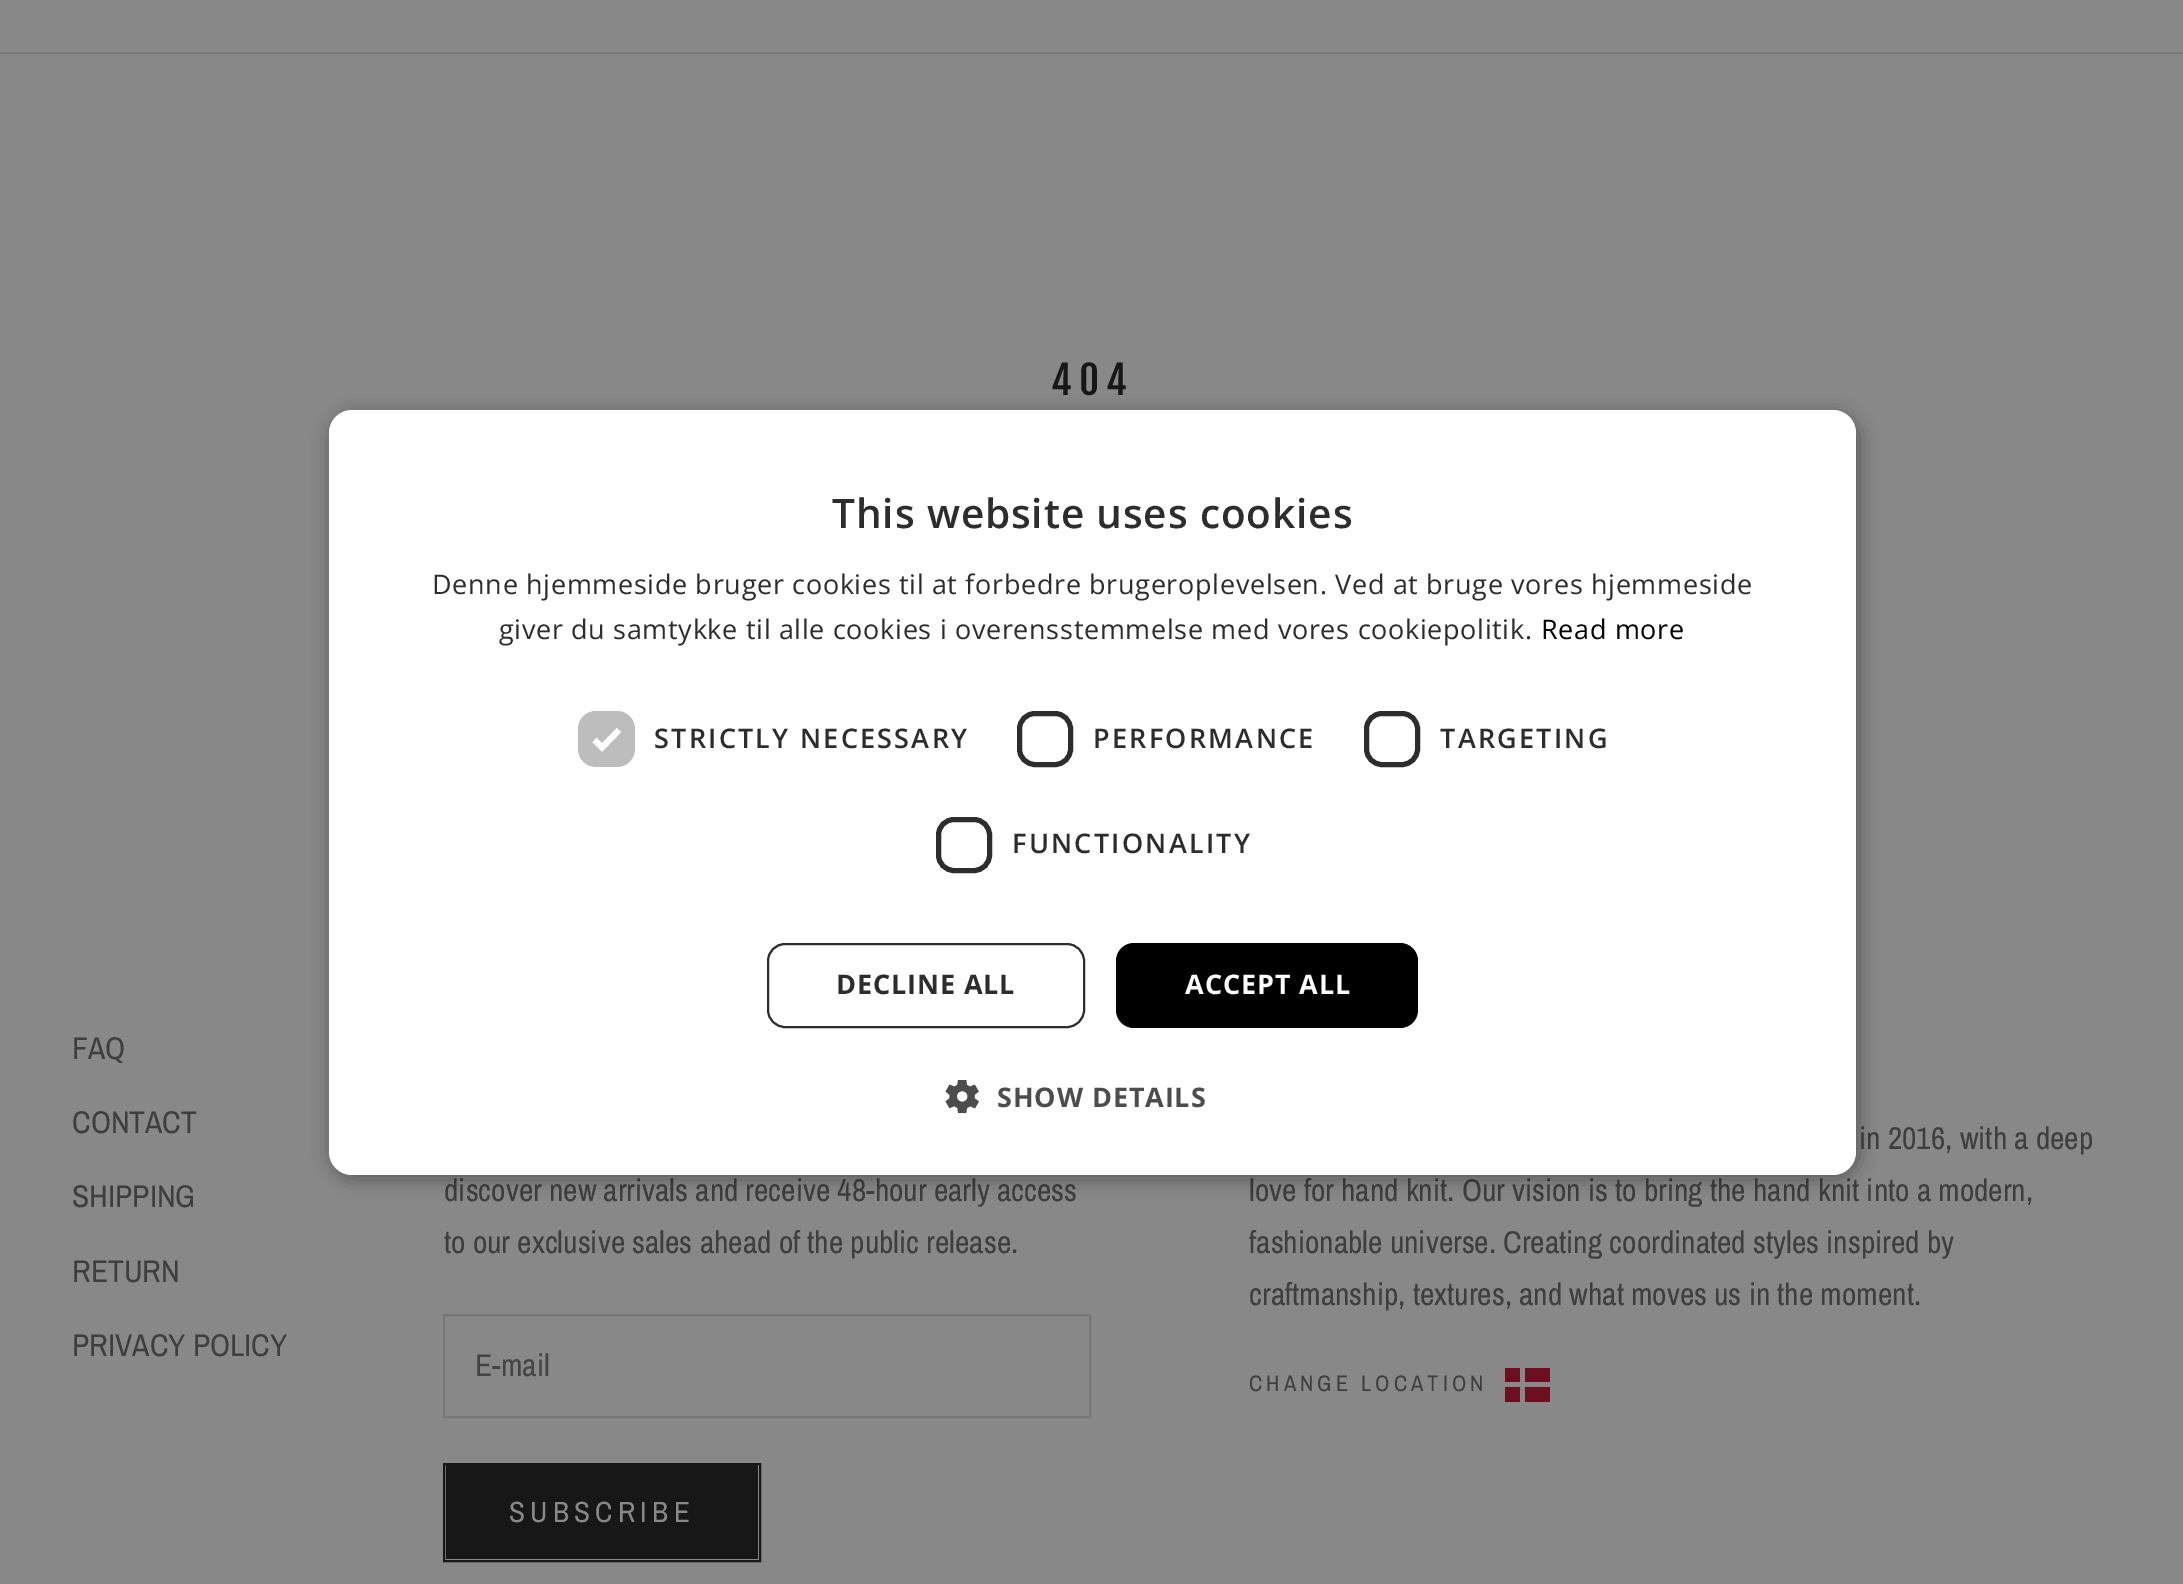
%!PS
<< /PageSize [2183 1584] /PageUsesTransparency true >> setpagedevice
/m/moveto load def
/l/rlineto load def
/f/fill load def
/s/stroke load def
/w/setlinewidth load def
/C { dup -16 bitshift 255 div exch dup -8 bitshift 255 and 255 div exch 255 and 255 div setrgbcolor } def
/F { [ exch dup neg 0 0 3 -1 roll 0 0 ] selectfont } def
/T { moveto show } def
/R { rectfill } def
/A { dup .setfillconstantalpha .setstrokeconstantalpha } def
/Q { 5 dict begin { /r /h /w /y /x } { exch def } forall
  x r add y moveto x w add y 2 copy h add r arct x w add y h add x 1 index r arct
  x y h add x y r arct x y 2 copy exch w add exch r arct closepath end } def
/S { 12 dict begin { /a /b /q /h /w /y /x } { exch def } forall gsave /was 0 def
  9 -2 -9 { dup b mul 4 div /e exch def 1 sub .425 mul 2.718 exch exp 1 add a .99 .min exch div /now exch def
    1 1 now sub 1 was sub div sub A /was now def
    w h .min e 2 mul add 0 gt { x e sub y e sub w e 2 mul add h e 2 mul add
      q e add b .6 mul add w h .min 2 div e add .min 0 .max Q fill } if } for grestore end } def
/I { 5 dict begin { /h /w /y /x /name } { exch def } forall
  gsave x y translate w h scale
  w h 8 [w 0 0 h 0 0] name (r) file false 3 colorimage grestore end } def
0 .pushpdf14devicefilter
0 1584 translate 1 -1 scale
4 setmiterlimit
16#888888 C
0 0 2183 1584 R
16#777777 C
0 52 2183 2 R
/FjallaOne-Regular 39 F
16#171717 C
1051 395 m 7 0 (404) ashow
/ArchivoNarrow-Regular 31.5 F
16#3E3E3E C
(FAQ) 72 1059 T
(CONTACT) 72 1133 T
(SHIPPING) 72 1207 T
(RETURN) 72 1282 T
(PRIVACY POLICY) 72 1356 T
(discover new arrivals and receive 48-hour early access) 444 1201 T
(to our exclusive sales ahead of the public release.) 444 1253 T
16#777777 C
2 w
444 1315 646 102 rectstroke
16#444444 C
(E-mail) 475 1376 T
16#171717 C
446 1465 312 94 R
444 1464 316 97 rectstroke
/ArchivoNarrow-Regular 29.25 F
16#888888 C
509 1522 m 5.25 0 (SUBSCRIBE) ashow
/ArchivoNarrow-Regular 31.5 F
16#3E3E3E C
(in 2016, with a deep) 1859 1149 T
(love for hand knit. Our vision is to bring the hand knit into a modern,) 1249 1201 T
(fashionable universe. Creating coordinated styles inspired by) 1249 1253 T
(craftmanship, textures, and what moves us in the moment.) 1249 1305 T
/ArchivoNarrow-Regular 22.5 F
1249 1391 m 4 0 (CHANGE LOCATION) ashow
16#6C0F21 C
1505 1368 45 34 R
16#888888 C
1520 1368 5 34 R
1505 1382 45 5 R
16#000000 C
331 414 1528 765 23 9 .35 S
16#FFFFFF C
329 410 1527 765 23 Q f
/OpenSans-SemiBold 40.5 F
16#2D2D2D C
832 528 m .9 0 (This website uses cookies) ashow
/OpenSans-Regular 27 F
432 594 m .67 0 (Denne hjemmeside bruger cookies til at forbedre brugeroplevelsen. Ved at bruge vores hjemmeside) ashow
499 639 m .67 0 (giver du samtykke til alle cookies i overensstemmelse med vores cookiepolitik.) ashow
16#000000 C
1541 639 m .67 0 (Read more) ashow
16#BDBDBD C
578 711 57 56 18 Q f
16#FFFFFF C
5.9 w
594.5 740 m 7.5 7.5 l 17 -17.5 l s
/OpenSans-SemiBold 27 F
16#2D2D2D C
654 748 m 2.25 0 (STRICTLY NECESSARY) ashow
5 w
1019.5 713.5 51 51 15.5 Q s
1093 748 m 2.25 0 (PERFORMANCE) ashow
1366.5 713.5 51 51 15.5 Q s
1440 748 m 2.25 0 (TARGETING) ashow
938.5 819.5 51 51 15.5 Q s
1012 853 m 2.25 0 (FUNCTIONALITY) ashow
2 w
768 944 316 83 17 Q s
/OpenSans-Bold 27 F
836 994 m .9 0 (DECLINE ALL) ashow
16#000000 C
1116 943 302 85 18 Q f
16#FFFFFF C
1185 994 m .9 0 (ACCEPT ALL) ashow
(1.rgb) 945 1080 34 34 I
16#4D4D4D C
997 1107 m .9 0 (SHOW DETAILS) ashow
.poppdf14devicefilter showpage
